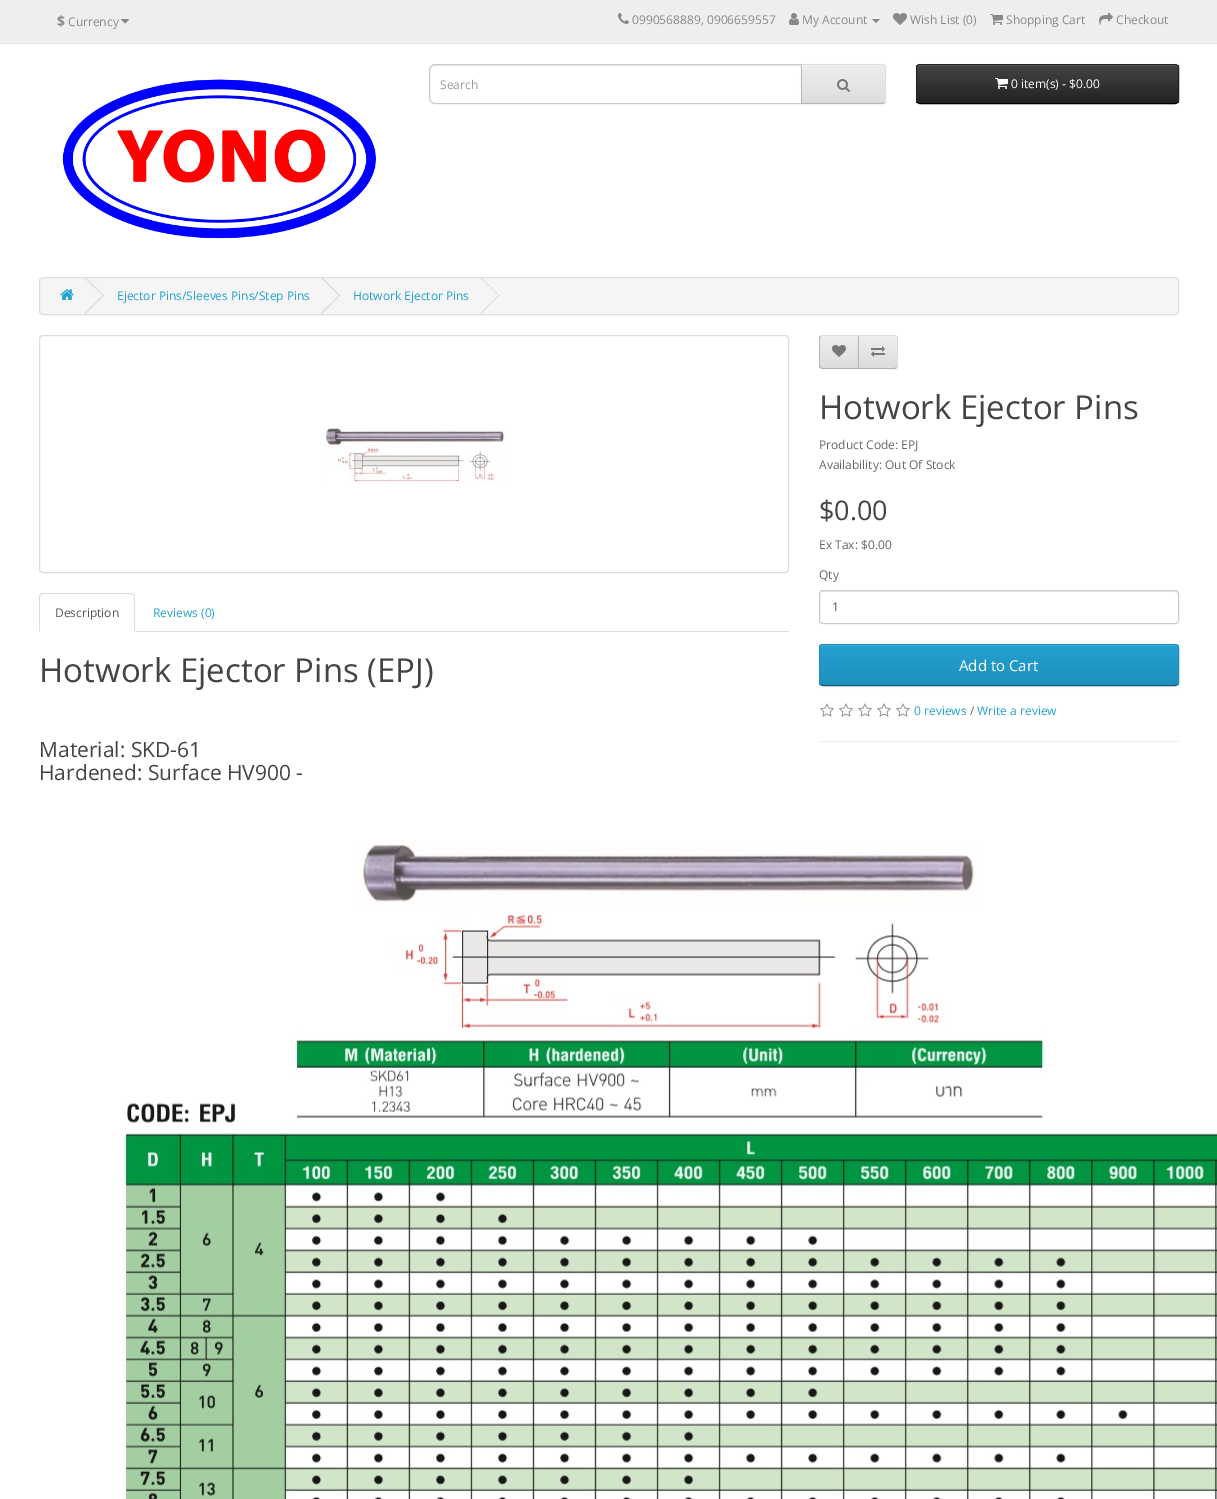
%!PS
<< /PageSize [1217 1499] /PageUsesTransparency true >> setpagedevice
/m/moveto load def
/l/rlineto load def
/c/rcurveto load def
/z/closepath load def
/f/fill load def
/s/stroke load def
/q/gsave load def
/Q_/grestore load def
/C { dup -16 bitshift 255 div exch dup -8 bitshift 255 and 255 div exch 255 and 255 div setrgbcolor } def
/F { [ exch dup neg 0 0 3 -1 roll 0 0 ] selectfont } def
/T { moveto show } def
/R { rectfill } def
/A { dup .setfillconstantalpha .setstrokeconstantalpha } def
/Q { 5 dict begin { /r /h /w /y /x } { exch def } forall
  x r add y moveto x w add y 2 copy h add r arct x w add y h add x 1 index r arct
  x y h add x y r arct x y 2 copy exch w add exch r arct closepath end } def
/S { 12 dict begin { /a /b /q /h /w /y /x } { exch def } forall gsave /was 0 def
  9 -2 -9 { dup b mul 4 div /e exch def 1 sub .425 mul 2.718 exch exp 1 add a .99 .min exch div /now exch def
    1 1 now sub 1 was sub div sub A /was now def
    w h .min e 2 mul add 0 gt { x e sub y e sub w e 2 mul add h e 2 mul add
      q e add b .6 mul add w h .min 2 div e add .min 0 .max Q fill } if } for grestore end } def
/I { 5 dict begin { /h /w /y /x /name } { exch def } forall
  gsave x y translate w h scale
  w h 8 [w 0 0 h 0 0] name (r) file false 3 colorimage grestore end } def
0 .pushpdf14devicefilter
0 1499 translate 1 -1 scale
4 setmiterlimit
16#FFFFFF C
0 0 1217 1499 R
16#EEEEEE C
0 0 1217 43 R
16#E2E2E2 C
0 43 1217 1 R
/OpenSans-Bold 14 F
16#888888 C
($) 57 26 T
/OpenSans-Regular 12 F
(Currency) 68 26 T
(1.rgb) 121 19 8 5 I
(2.rgb) 618 13 11 11 I
(0990568889, 0906659557) 632 24 T
(3.rgb) 789 13 10 12 I
(My Account) 802 24 T
872 19 m 8 0 l -4 4 l z f
(4.rgb) 893 13 14 12 I
(Wish List \(0\)) 910 24 T
(5.rgb) 990 14 13 11 I
(Shopping Cart) 1006 24 T
(6.rgb) 1099 12 14 13 I
(Checkout) 1116 24 T
(7.rgb) 62 79 314 160 I
16#ECECEC C
435 66 m 366 0 l 0 -1 l -366 0 l -3 0 -5 2 -5 5 c 0 1 l 0 -3 2 -5 5 -5 c z f
16#CCCCCC C
435 64.5 m 366.5 0 l 0 39 l -366.5 0 l -3 0 -5.5 -2.5 -5.5 -5.5 c 0 -28 l 0 -3 2.5 -5.5 5.5 -5.5 c z s
16#999999 C
(Search) 440 89 T
16#000000 C
801 65 85 40 4 1 .05 S
16#E7E7E7 C
801 64 m 81 0 l 2 0 4 2 4 4 c 0 32 l 0 2 -2 4 -4 4 c -81 0 l z f
q
801 64 m 81 0 l 2 0 4 2 4 4 c 0 32 l 0 2 -2 4 -4 4 c -81 0 l z clip newpath
q 802 65 m 84 0 l 0 38 l -84 0 l z clip newpath
<< /ShadingType 2 /ColorSpace /DeviceRGB /Coords [844 65 844 103] /Extend [true true] /Function << /FunctionType 2 /Domain [0 1] /C0 [.933 .933 .933] /C1 [.867 .867 .867] /N 1 >> >> shfill Q_
Q_
16#F1F1F1 C
802 66 m 80 0 l 2 0 3 1 3 3 c 0 -1 l 0 -2 -1 -3 -3 -3 c -80 0 l z f
16#DDDDDD C
801 64 m 1 1 l 81 0 l 1 1 l 1 -1 l -3 -1 l z f
886 100 m 0 -32 l 0 -1 -.5 -2 -1 -3 c -1 1 l 1 0 1 1 1 2 c 0 32 l 0 1 0 2 -1 2 c 1 1 l .5 -1 1 -2 1 -3 c z f
16#B3B3B3 C
882 104 m 3 -1 l -1 -1 l -1 1 l -81 0 l -1 1 l z f
16#B7B7B7 C
801 64 m 0 40 l 1 -1 l 0 -38 l z f
(8.rgb) 837 79 13 13 I
16#000000 C
916 65 263 40 4 1 .05 S
q
916 64 263 40 4 Q clip newpath
q 916 65 m 263 0 l 0 38 l -263 0 l z clip newpath
<< /ShadingType 2 /ColorSpace /DeviceRGB /Coords [1048 65 1048 103] /Extend [true true] /Function << /FunctionType 2 /Domain [0 1] /C0 [.267 .267 .267] /C1 [.133 .133 .133] /N 1 >> >> shfill Q_
Q_
16#696969 C
920 66 m 256 0 l 2 1 l 0 2 l 0 -1 l 0 -2 -1 -3 -3 -3 c -255 0 l -2 0 -3 1 -3 3 c 0 1 l 0 -2 1 -3 3 -3 c z f
16#000000 C
1177.5 102.5 m -.5 .5 -1.5 1 -2.5 1 c -255 0 l -1 0 -2 -.5 -2.5 -1 c s
16#222222 C
917.5 102.5 m -.5 -.5 -1 -1.5 -1 -2.5 c 0 -32 l 0 -1 .5 -2 1 -2.5 c .5 -.5 1.5 -1 2.5 -1 c 255 0 l 1 0 2 .5 2.5 1 c .5 .5 1 1.5 1 2.5 c 0 32 l 0 1 -.5 2 -1 2.5 c s
(9.rgb) 995 78 13 11 I
16#FFFFFF C
(0 item\(s\) - $0.00) 1011 88 T
16#F5F5F5 C
39.5 277.5 1139 37 3.5 Q q f Q_
16#DDDDDD C
s
(10.rgb) 60 289 14 11 I
84.5 278 m 1 -1 l 18.5 18.5 l -1 .5 l z f
84.5 313 m 18.5 -18 l 1 .5 l -18.5 18.5 l z f
16#23A1D1 C
(Ejector Pins/Sleeves Pins/Step Pins) 117 300 T
16#DDDDDD C
321 278 m 1 -1 l 18 18.5 l -.5 .5 l z f
321 313 m 18.5 -18 l .5 .5 l -18 18.5 l z f
16#23A1D1 C
(Hotwork Ejector Pins) 353 300 T
16#DDDDDD C
480.5 278 m .5 -1 l 18.5 18.5 l -.5 .5 l z f
480.5 313 m 18.5 -18 l .5 .5 l -18.5 18.5 l z f
39.5 335.5 749 237 3.5 Q s
(11.rgb) 324 426 184 58 I
135 631 654 1 R
43 593 m -3 1 l 1 1 l 2 -1 l 88 0 l 2 1 l 1 -1 l -3 -1 l z f
135 632 m 0 -35 l 0 -1 -.5 -2 -1 -3 c -1 1 l 1 0 1 1 1 2 c 0 34 l z f
39 632 m 1 -1 l 0 -34 l 0 -1 0 -2 1 -2 c -1 -1 l -.5 1 -1 2 -1 3 c z f
16#555555 C
(Description) 55 617 T
16#23A1D1 C
(Reviews \(0\)) 153 617 T
/OpenSans-Regular 33 F
16#444444 C
(Hotwork Ejector Pins \(EPJ\)) 39 682 T
/OpenSans-Regular 21 F
(Material: SKD-61) 39 757 T
(Hardened: Surface HV900 -) 39 780 T
(12.rgb) 119 840 1098 659 I
16#000000 C
819 336 40 34 4 1 .05 S
q
823 335 m 36 0 l 0 34 l -36 0 l -2 0 -4 -2 -4 -4 c 0 -26 l 0 -2 2 -4 4 -4 c z clip newpath
q 819 336 m 39 0 l 0 32 l -39 0 l z clip newpath
<< /ShadingType 2 /ColorSpace /DeviceRGB /Coords [839 336 839 368] /Extend [true true] /Function << /FunctionType 2 /Domain [0 1] /C0 [.933 .933 .933] /C1 [.867 .867 .867] /N 1 >> >> shfill Q_
Q_
16#F1F1F1 C
823 337 m 35 0 l 0 -1 l -35 0 l -1.5 0 -3 1.5 -3 3 c 0 1 l 0 -2 1 -3 3 -3 c z f
16#DDDDDD C
823 335 m -1 0 -2 .5 -3 1 c 1 1 l 0 -1 1 -1 2 -1 c 35 0 l 1 -1 l z f
16#B3B3B3 C
859 369 m -1 -1 l -35 0 l -1 0 -2 0 -2 -1 c -1 1 l 1 .5 2 1 3 1 c z f
16#B7B7B7 C
819 339 m 0 26 l 0 1 .5 2 1 3 c 1 -1 l -1 0 -1 -1 -1 -2 c 0 -26 l 0 -1 0 -2 1 -2 c -1 -1 l -.5 1 -1 2 -1 3 c z f
(13.rgb) 832 345 14 12 I
16#000000 C
858 336 40 34 4 1 .05 S
q
858 335 m 36 0 l 2 0 4 2 4 4 c 0 26 l 0 2 -2 4 -4 4 c -36 0 l z clip newpath
q 859 336 m 39 0 l 0 32 l -39 0 l z clip newpath
<< /ShadingType 2 /ColorSpace /DeviceRGB /Coords [878 336 878 368] /Extend [true true] /Function << /FunctionType 2 /Domain [0 1] /C0 [.933 .933 .933] /C1 [.867 .867 .867] /N 1 >> >> shfill Q_
Q_
16#F1F1F1 C
859 337 m 35 0 l 2 0 3 1 3 3 c 0 -1 l 0 -1.5 -1.5 -3 -3 -3 c -35 0 l z f
16#DDDDDD C
858 335 m 1 1 l 35 0 l 1 0 2 0 2 1 c 1 -1 l -1 -.5 -2 -1 -3 -1 c z f
898 365 m 0 -26 l 0 -1 -.5 -2 -1 -3 c -1 1 l 1 0 1 1 1 2 c 0 26 l 0 1 0 2 -1 2 c 1 1 l .5 -1 1 -2 1 -3 c z f
16#B3B3B3 C
894 369 m 1 0 2 -.5 3 -1 c -1 -1 l 0 1 -1 1 -2 1 c -35 0 l -1 1 l z f
16#B7B7B7 C
858 335 m 0 34 l 1 -1 l 0 -32 l z f
(14.rgb) 871 346 14 11 I
/OpenSans-Regular 33 F
16#444444 C
(Hotwork Ejector Pins) 819 419 T
/OpenSans-Regular 12 F
16#666666 C
(Product Code: EPJ) 819 449 T
(Availability: Out Of Stock) 819 469 T
/OpenSans-Regular 27 F
16#444444 C
($0.00) 819 520 T
/OpenSans-Regular 12 F
16#666666 C
(Ex Tax: $0.00) 819 549 T
(Qty) 819 579 T
16#ECECEC C
823 592 m 352 0 l 2 0 3 1 3 3 c 0 -2 -1 -4 -3 -4 c -352 0 l -2 1 l -1 3 l 0 -2 1 -3 3 -3 c z f
16#CCCCCC C
819.5 590.5 359 33 3.5 Q s
16#555555 C
(1) 832 611 T
16#000000 C
819 645 360 42 4 1 .05 S
16#229AC8 C
819 644 360 42 4 Q f
q
819 644 360 42 4 Q clip newpath
q 819 645 m 360 0 l 0 40 l -360 0 l z clip newpath
<< /ShadingType 2 /ColorSpace /DeviceRGB /Coords [999 645 999 685] /Extend [true true] /Function << /FunctionType 2 /Domain [0 1] /C0 [.137 .631 .82] /C1 [.122 .565 .733] /N 1 >> >> shfill Q_
Q_
16#4FB4DA C
823 646 m 352 0 l 2 0 3 1 3 3 c 0 -2 -1 -4 -3 -4 c -352 0 l -2 1 l -1 3 l 0 -2 1 -3 3 -3 c z f
16#145E7A C
1177.5 684.5 m -2.5 1 l -352 0 l -2.5 -1 l s
16#1F90BB C
820.5 684.5 m -.5 -.5 -1 -1.5 -1 -2.5 c 0 -34 l 0 -1 .5 -2 1 -2.5 c .5 -.5 1.5 -1 2.5 -1 c 352 0 l 1 0 2 .5 2.5 1 c .5 .5 1 1.5 1 2.5 c 0 34 l 0 1 -.5 2 -1 2.5 c s
/OpenSans-Regular 15 F
16#FFFFFF C
(Add to Cart) 959 671 T
(15.rgb) 820 703 14 14 I
(15.rgb) 839 703 14 14 I
(15.rgb) 858 703 14 14 I
(15.rgb) 877 703 14 14 I
(15.rgb) 896 703 14 14 I
/OpenSans-Regular 12 F
16#23A1D1 C
(0 reviews) 914 715 T
16#666666 C
(/) 970 715 T
16#23A1D1 C
(Write a review) 977 715 T
16#EEEEEE C
819 741 360 1 R
.poppdf14devicefilter showpage
